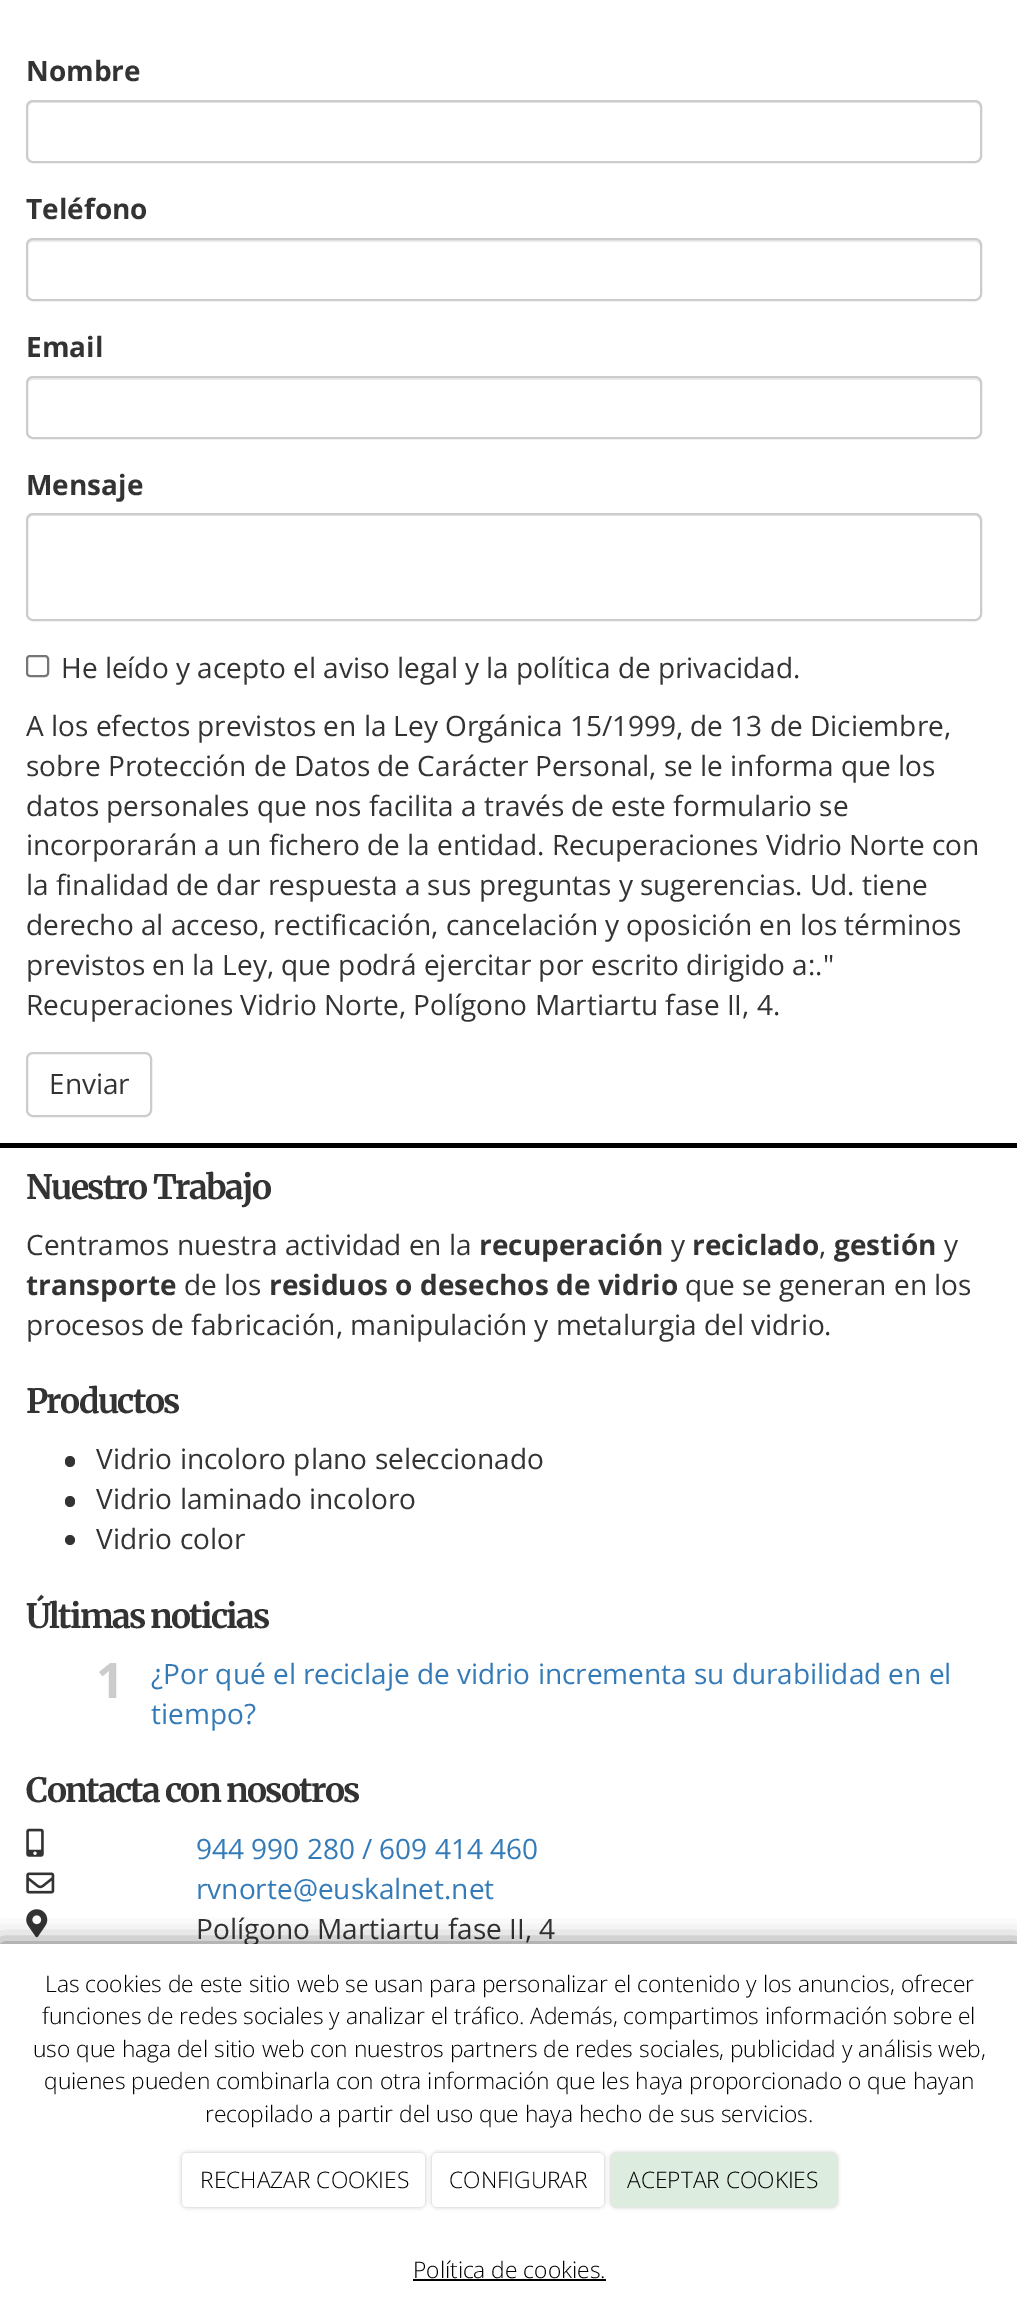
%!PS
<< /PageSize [1017 2308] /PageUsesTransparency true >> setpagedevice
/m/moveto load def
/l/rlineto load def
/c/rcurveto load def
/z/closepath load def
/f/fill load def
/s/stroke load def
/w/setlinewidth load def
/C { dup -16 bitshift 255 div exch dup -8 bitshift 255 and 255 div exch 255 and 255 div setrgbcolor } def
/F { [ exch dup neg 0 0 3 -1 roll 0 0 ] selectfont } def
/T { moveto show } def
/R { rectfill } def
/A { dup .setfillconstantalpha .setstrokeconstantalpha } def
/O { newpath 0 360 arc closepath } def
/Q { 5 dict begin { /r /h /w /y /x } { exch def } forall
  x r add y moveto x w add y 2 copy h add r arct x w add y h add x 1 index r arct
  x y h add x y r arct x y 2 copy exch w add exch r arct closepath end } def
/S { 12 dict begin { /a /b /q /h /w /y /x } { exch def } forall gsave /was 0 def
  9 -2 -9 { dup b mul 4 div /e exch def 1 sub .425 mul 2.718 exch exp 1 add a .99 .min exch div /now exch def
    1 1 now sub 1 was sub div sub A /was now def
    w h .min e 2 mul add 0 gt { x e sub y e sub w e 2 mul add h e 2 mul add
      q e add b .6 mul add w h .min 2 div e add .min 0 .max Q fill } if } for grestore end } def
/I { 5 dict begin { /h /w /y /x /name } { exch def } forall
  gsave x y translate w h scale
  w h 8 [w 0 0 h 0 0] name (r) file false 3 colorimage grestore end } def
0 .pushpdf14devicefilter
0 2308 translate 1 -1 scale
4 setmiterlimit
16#FFFFFF C
0 0 1017 2308 R
/OpenSans-Bold 28 F
16#333333 C
(Nombre) 26 81 T
16#ECECEC C
33 103 m 942 0 l 3 0 5 3 5 5 c 0 -3 -2 -6 -5 -6 c -942 0 l -3 0 -5 3 -5 6 c 0 -2 2 -5 5 -5 c z f
16#CCCCCC C
2 w
27 101 954 61 6 Q s
16#333333 C
(Teléfono) 26 219 T
16#ECECEC C
33 242 m 942 0 l 3 0 5 2 5 5 c 0 -3 -1 -7 -5 -7 c -942 0 l -4 0 -5 4 -5 7 c 0 -3 2 -5 5 -5 c z f
16#CCCCCC C
27 239 954 61 6 Q s
16#333333 C
(Email) 26 357 T
16#ECECEC C
33 380 m 942 0 l 3 0 5 2 5 5 c 0 -3 -1 -7 -5 -7 c -942 0 l -4 0 -5 4 -5 7 c 0 -3 2 -5 5 -5 c z f
16#CCCCCC C
27 377 954 61 6 Q s
16#333333 C
(Mensaje) 26 495 T
16#ECECEC C
33 516 m 942 0 l 3 0 5 3 5 6 c 0 -3 -1 -7 -5 -7 c -942 0 l -4 0 -5 4 -5 7 c 0 -3 2 -6 5 -6 c z f
16#CCCCCC C
27 514 954 106 6 Q s
16#767676 C
27 656 21 20 3 Q s
/OpenSans-Regular 28 F
16#333333 C
(He leído y acepto el aviso legal y la política de privacidad.) 61 678 T
(A los efectos previstos en la Ley Orgánica 15/1999, de 13 de Diciembre,) 26 736 T
(sobre Protección de Datos de Carácter Personal, se le informa que los) 26 776 T
(datos personales que nos facilita a través de este formulario se) 26 816 T
(incorporarán a un fichero de la entidad. Recuperaciones Vidrio Norte con) 26 855 T
(la finalidad de dar respuesta a sus preguntas y sugerencias. Ud. tiene) 26 895 T
(derecho al acceso, rectificación, cancelación y oposición en los términos) 26 935 T
(previstos en la Ley, que podrá ejercitar por escrito dirigido a:.") 26 975 T
(Recuperaciones Vidrio Norte, Polígono Martiartu fase II, 4.) 26 1015 T
16#CCCCCC C
27 1053 124 63 6 Q s
16#333333 C
(Enviar) 49 1094 T
16#000000 C
0 1143 1017 5 R
/Merriweather-Bold 33.5 F
16#333333 C
26 1199 m -1.7 0 (Nuestro Trabajo) ashow
/OpenSans-Regular 28 F
(Centramos nuestra actividad en la) 26 1255 T
/OpenSans-Bold 28 F
(recuperación) 479 1255 T
/OpenSans-Regular 28 F
(y) 671 1255 T
/OpenSans-Bold 28 F
(reciclado) 692 1255 T
/OpenSans-Regular 28 F
(,) 819 1255 T
/OpenSans-Bold 28 F
(gestión) 834 1255 T
/OpenSans-Regular 28 F
(y) 944 1255 T
/OpenSans-Bold 28 F
(transporte) 26 1295 T
/OpenSans-Regular 28 F
(de los) 184 1295 T
/OpenSans-Bold 28 F
(residuos o desechos de vidrio) 269 1295 T
/OpenSans-Regular 28 F
(que se generan en los) 685 1295 T
(procesos de fabricación, manipulación y metalurgia del vidrio.) 26 1335 T
/Merriweather-Bold 33.5 F
26 1413 m -1.7 0 (Productos) ashow
65 1456 10 11 5 Q f
/OpenSans-Regular 28 F
(Vidrio incoloro plano seleccionado) 96 1469 T
65 1496 10 11 5 Q f
(Vidrio laminado incoloro) 96 1509 T
70 1540 5 O f
(Vidrio color) 96 1549 T
/Merriweather-Bold 33.5 F
26 1628 m -1 0 32 -1.7 0 (Últimas noticias) awidthshow
/OpenSans-Bold 49 F
16#CCCCCC C
(1) 96 1698 T
/OpenSans-Regular 28 F
16#337AB7 C
(¿Por qué el reciclaje de vidrio incrementa su durabilidad en el) 151 1684 T
(tiempo?) 151 1724 T
/Merriweather-Bold 33.5 F
16#333333 C
26 1802 m -1.7 0 (Contacta con nosotros) ashow
(1.rgb) 26 1828 18 29 I
/OpenSans-Regular 28 F
16#337AB7 C
(944 990 280 / 609 414 460) 196 1859 T
(2.rgb) 26 1872 29 22 I
(rvnorte@euskalnet.net) 196 1899 T
(3.rgb) 26 1909 22 29 I
16#333333 C
(Polígono Martiartu fase II, 4) 196 1939 T
16#000000 C
0 1944 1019 364 0 11.5 .6 S
16#FFFFFF C
0 1944 1017 364 R
/OpenSans-Light 22.75 F
16#000000 C
(Las cookies de este sitio web se usan para personalizar el contenido y los anuncios, ofrecer) 45 1992 T
(funciones de redes sociales y analizar el tráfico. Además, compartimos información sobre el) 42 2024 T
(uso que haga del sitio web con nuestros partners de redes sociales, publicidad y análisis web,) 33 2057 T
(quienes pueden combinarla con otra información que les haya proporcionado o que hayan) 44 2089 T
(recopilado a partir del uso que haya hecho de sus servicios.) 205 2122 T
182 2153 243 54 5 2 .25 S
16#FFFFFF C
182 2153 243 54 5 Q f
16#000000 C
(RECHAZAR COOKIES) 200 2188 T
432 2153 172 54 5 2 .25 S
16#FFFFFF C
432 2153 172 54 5 Q f
16#000000 C
(CONFIGURAR) 449 2188 T
611 2153 226 54 5 2 .25 S
16#DCECDF C
611 2153 226 54 5 Q f
16#000000 C
(ACEPTAR COOKIES) 627 2188 T
(Política de cookies.) 413 2278 T
413 2279 193 2 R
.poppdf14devicefilter showpage
